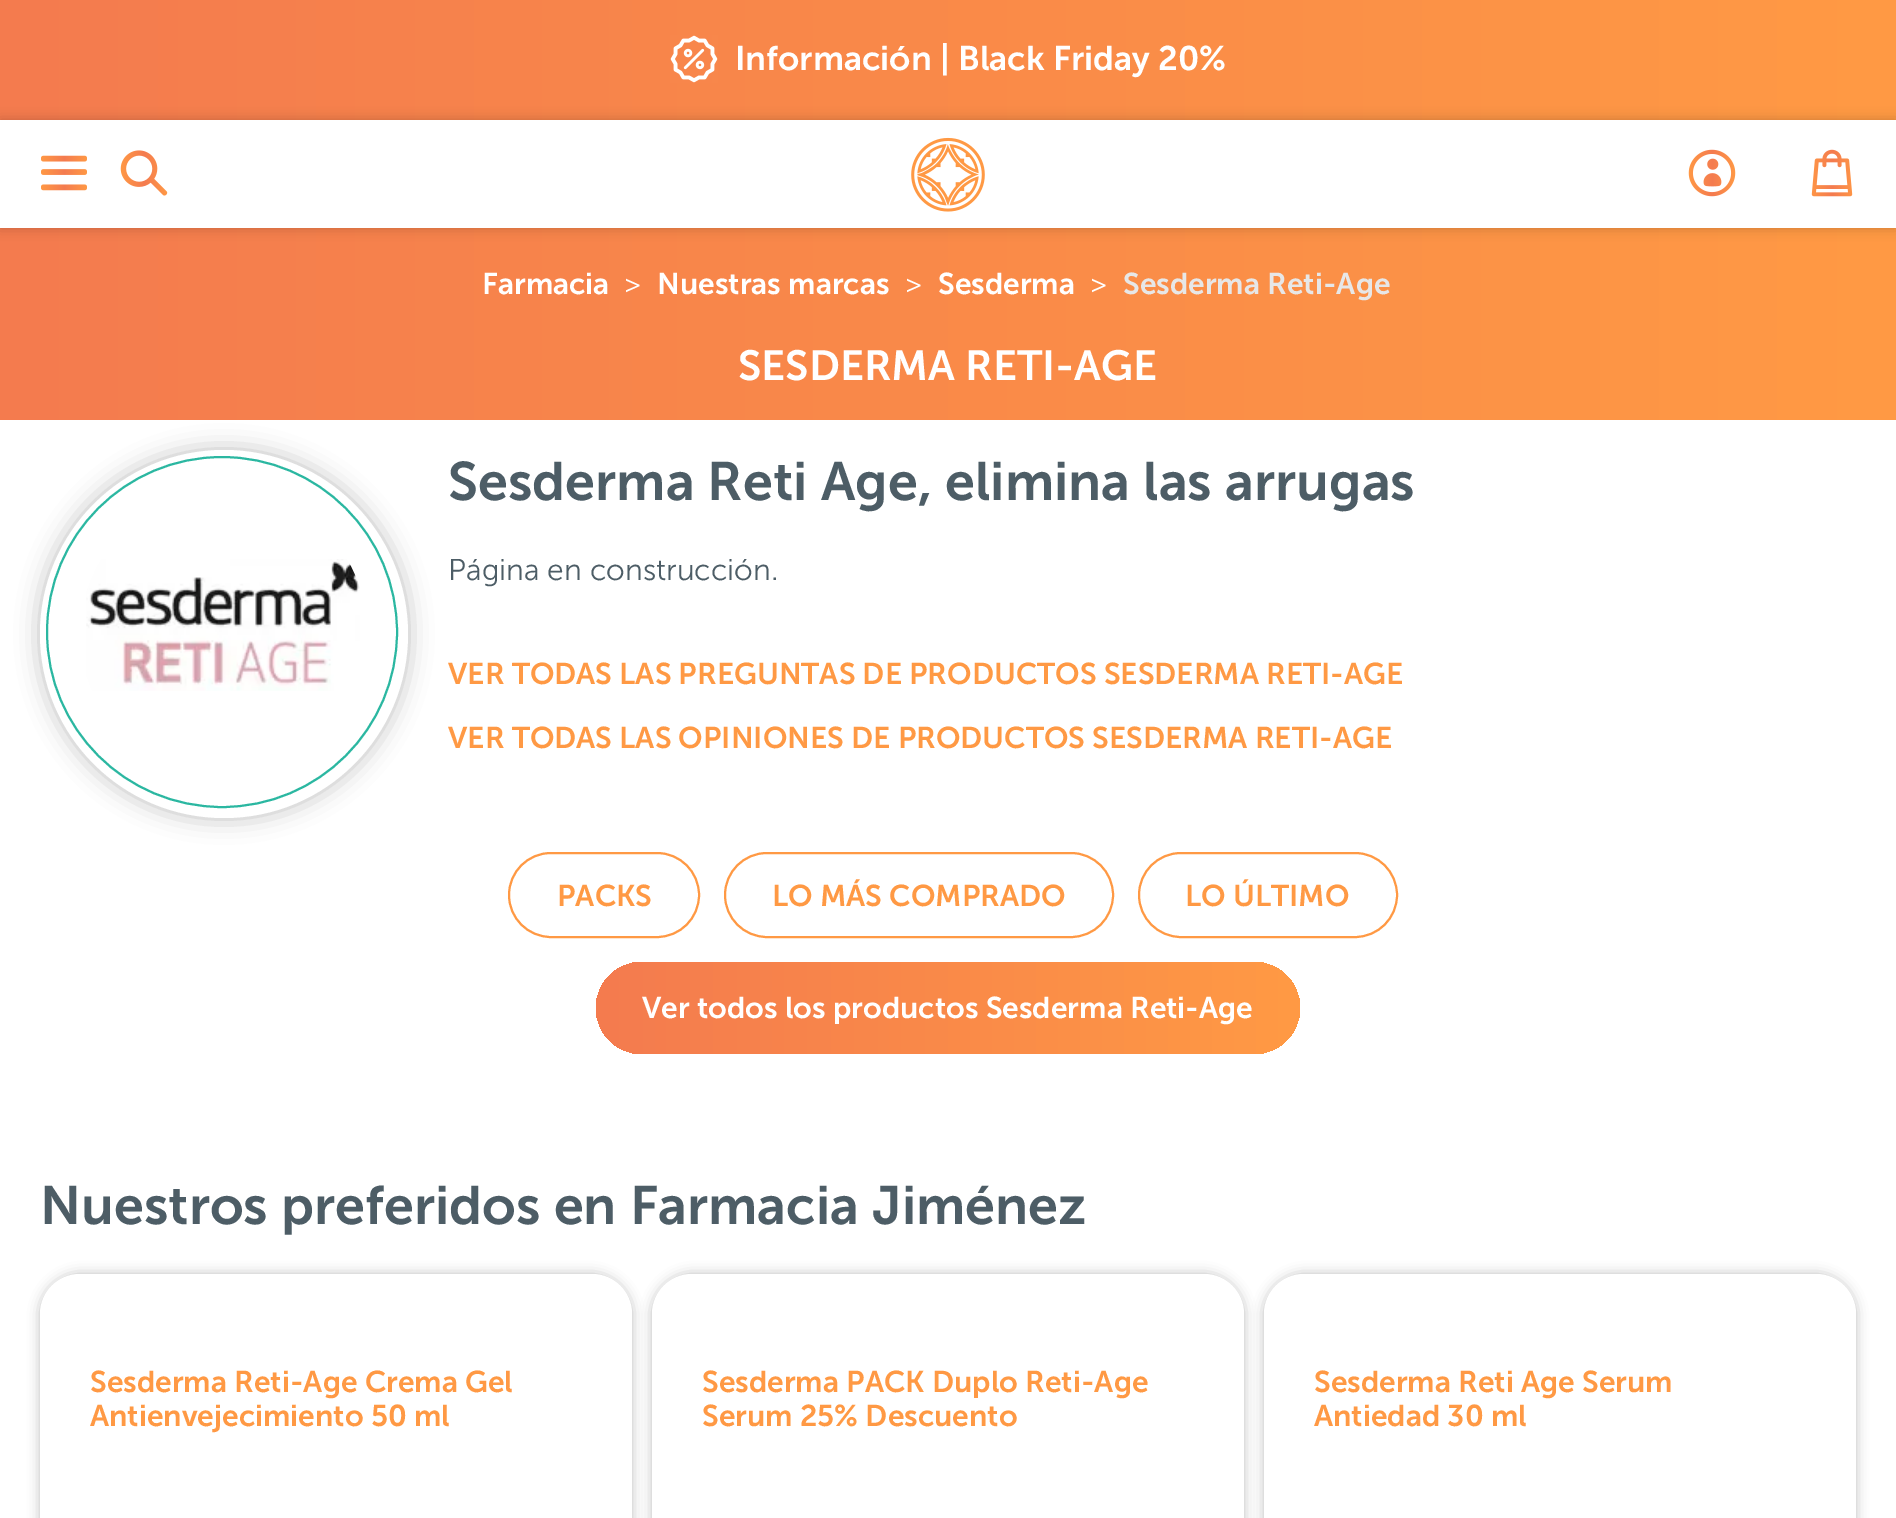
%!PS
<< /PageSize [1896 1518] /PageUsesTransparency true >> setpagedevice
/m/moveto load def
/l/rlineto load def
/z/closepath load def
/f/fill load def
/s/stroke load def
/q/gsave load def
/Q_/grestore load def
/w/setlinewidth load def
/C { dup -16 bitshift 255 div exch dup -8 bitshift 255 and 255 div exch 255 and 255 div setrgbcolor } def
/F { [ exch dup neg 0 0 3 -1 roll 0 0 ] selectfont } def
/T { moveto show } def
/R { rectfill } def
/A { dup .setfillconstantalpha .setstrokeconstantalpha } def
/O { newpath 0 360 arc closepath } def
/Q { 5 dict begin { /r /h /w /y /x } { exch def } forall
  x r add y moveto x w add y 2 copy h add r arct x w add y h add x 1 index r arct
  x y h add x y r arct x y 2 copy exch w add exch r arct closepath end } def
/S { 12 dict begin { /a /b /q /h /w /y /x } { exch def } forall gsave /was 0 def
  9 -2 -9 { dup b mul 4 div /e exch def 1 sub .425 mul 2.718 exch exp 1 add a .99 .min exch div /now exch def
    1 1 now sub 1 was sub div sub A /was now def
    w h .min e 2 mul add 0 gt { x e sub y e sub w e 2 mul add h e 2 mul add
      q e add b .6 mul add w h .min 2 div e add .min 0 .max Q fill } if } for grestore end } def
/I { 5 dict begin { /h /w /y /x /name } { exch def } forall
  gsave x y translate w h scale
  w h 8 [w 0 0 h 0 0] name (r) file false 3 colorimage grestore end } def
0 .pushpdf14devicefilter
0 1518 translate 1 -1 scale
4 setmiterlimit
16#FFFFFF C
0 0 1896 1518 R
q 0 0 m 1896 0 l 0 120 l -1896 0 l z clip newpath
<< /ShadingType 2 /ColorSpace /DeviceRGB /Coords [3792 60 0 60] /Extend [true true] /Function << /FunctionType 3 /Domain [0 1] /Functions [<< /FunctionType 2 /Domain [0 1] /C0 [.957 .482 .31] /C1 [1 .6 .267] /N 1 >> << /FunctionType 2 /Domain [0 1] /C0 [1 .6 .267] /C1 [.957 .482 .31] /N 1 >>] /Bounds [.51] /Encode [0 1 0 1] >> >> shfill Q_
(1.rgb) 670 35 48 48 I
/MuseoSans-SemiBold 34 F
(Información | Black Friday 20%) 735 70 T
q 0 228 m 1896 0 l 0 192 l -1896 0 l z clip newpath
<< /ShadingType 2 /ColorSpace /DeviceRGB /Coords [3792 324 0 324] /Extend [true true] /Function << /FunctionType 3 /Domain [0 1] /Functions [<< /FunctionType 2 /Domain [0 1] /C0 [.957 .482 .31] /C1 [1 .6 .267] /N 1 >> << /FunctionType 2 /Domain [0 1] /C0 [1 .6 .267] /C1 [.957 .482 .31] /N 1 >>] /Bounds [.51] /Encode [0 1 0 1] >> >> shfill Q_
q
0 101 m 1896 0 l 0 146 l -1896 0 l z 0 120 m 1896 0 l 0 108 l -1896 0 l z eoclip newpath
16#000000 C
0 120 1896 108 0 6 .2 S
Q_
(2.rgb) 41 155 46 36 I
(3.rgb) 120 150 48 46 I
(4.rgb) 911 137 74 75 I
(5.rgb) 1688 149 48 48 I
(6.rgb) 1811 149 42 48 I
/MuseoSans-SemiBold 30 F
(Farmacia) 482 294 T
/MuseoSans-Light 30 F
(>) 624 294 T
/MuseoSans-SemiBold 30 F
(Nuestras marcas) 657 294 T
/MuseoSans-Light 30 F
(>) 905 294 T
/MuseoSans-SemiBold 30 F
(Sesderma) 938 294 T
/MuseoSans-Light 30 F
(>) 1090 294 T
/MuseoSans-SemiBold 30 F
16#E7E7E7 C
(Sesderma Reti-Age) 1123 294 T
/MuseoSans-SemiBold 42 F
16#FFFFFF C
(SESDERMA RETI-AGE) 738 380 T
16#000000 C
40 450 368 368 184 12 .25 S
16#FFFFFF C
224 634 184 O f
(7.rgb) 86 559 274 132 I
16#2BB7A1 C
2 w
222 632 175 O s
/MuseoSans-SemiBold 54 F
16#4D5D66 C
(Sesderma Reti Age, elimina las arrugas) 448 500 T
/MuseoSans-Light 30 F
(Página en construcción.) 448 580 T
/MuseoSans-SemiBold 30 F
16#FF9944 C
(VER TODAS LAS PREGUNTAS DE PRODUCTOS SESDERMA RETI-AGE) 448 684 T
(VER TODAS LAS OPINIONES DE PRODUCTOS SESDERMA RETI-AGE) 448 748 T
509 853 190 84 42 Q s
(PACKS) 557 906 T
725 853 388 84 42 Q s
(LO MÁS COMPRADO) 772 906 T
1139 853 258 84 42 Q s
(LO ÚLTIMO) 1185 906 T
q 596 962 704 92 46 Q clip newpath
<< /ShadingType 2 /ColorSpace /DeviceRGB /Coords [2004 1008 596 1008] /Extend [true true] /Function << /FunctionType 3 /Domain [0 1] /Functions [<< /FunctionType 2 /Domain [0 1] /C0 [.957 .482 .31] /C1 [1 .6 .267] /N 1 >> << /FunctionType 2 /Domain [0 1] /C0 [1 .6 .267] /C1 [.957 .482 .31] /N 1 >>] /Bounds [.51] /Encode [0 1 0 1] >> >> shfill Q_
16#FFFFFF C
(Ver todos los productos Sesderma Reti-Age) 642 1018 T
/MuseoSans-SemiBold 54 F
16#4D5D66 C
(Nuestros preferidos en Farmacia Jiménez) 40 1224 T
16#000000 C
40 1274 592 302 40 6 .25 S
16#FFFFFF C
40 1274 592 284 40 Q f
/MuseoSans-SemiBold 30 F
16#FF9944 C
(Sesderma Reti-Age Crema Gel) 90 1392 T
(Antienvejecimiento 50 ml) 90 1426 T
16#000000 C
652 1274 592 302 40 6 .25 S
16#FFFFFF C
652 1274 592 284 40 Q f
16#FF9944 C
(Sesderma PACK Duplo Reti-Age) 702 1392 T
(Serum 25% Descuento) 702 1426 T
16#000000 C
1264 1274 592 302 40 6 .25 S
16#FFFFFF C
1264 1274 592 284 40 Q f
16#FF9944 C
(Sesderma Reti Age Serum) 1314 1392 T
(Antiedad 30 ml) 1314 1426 T
.poppdf14devicefilter showpage
